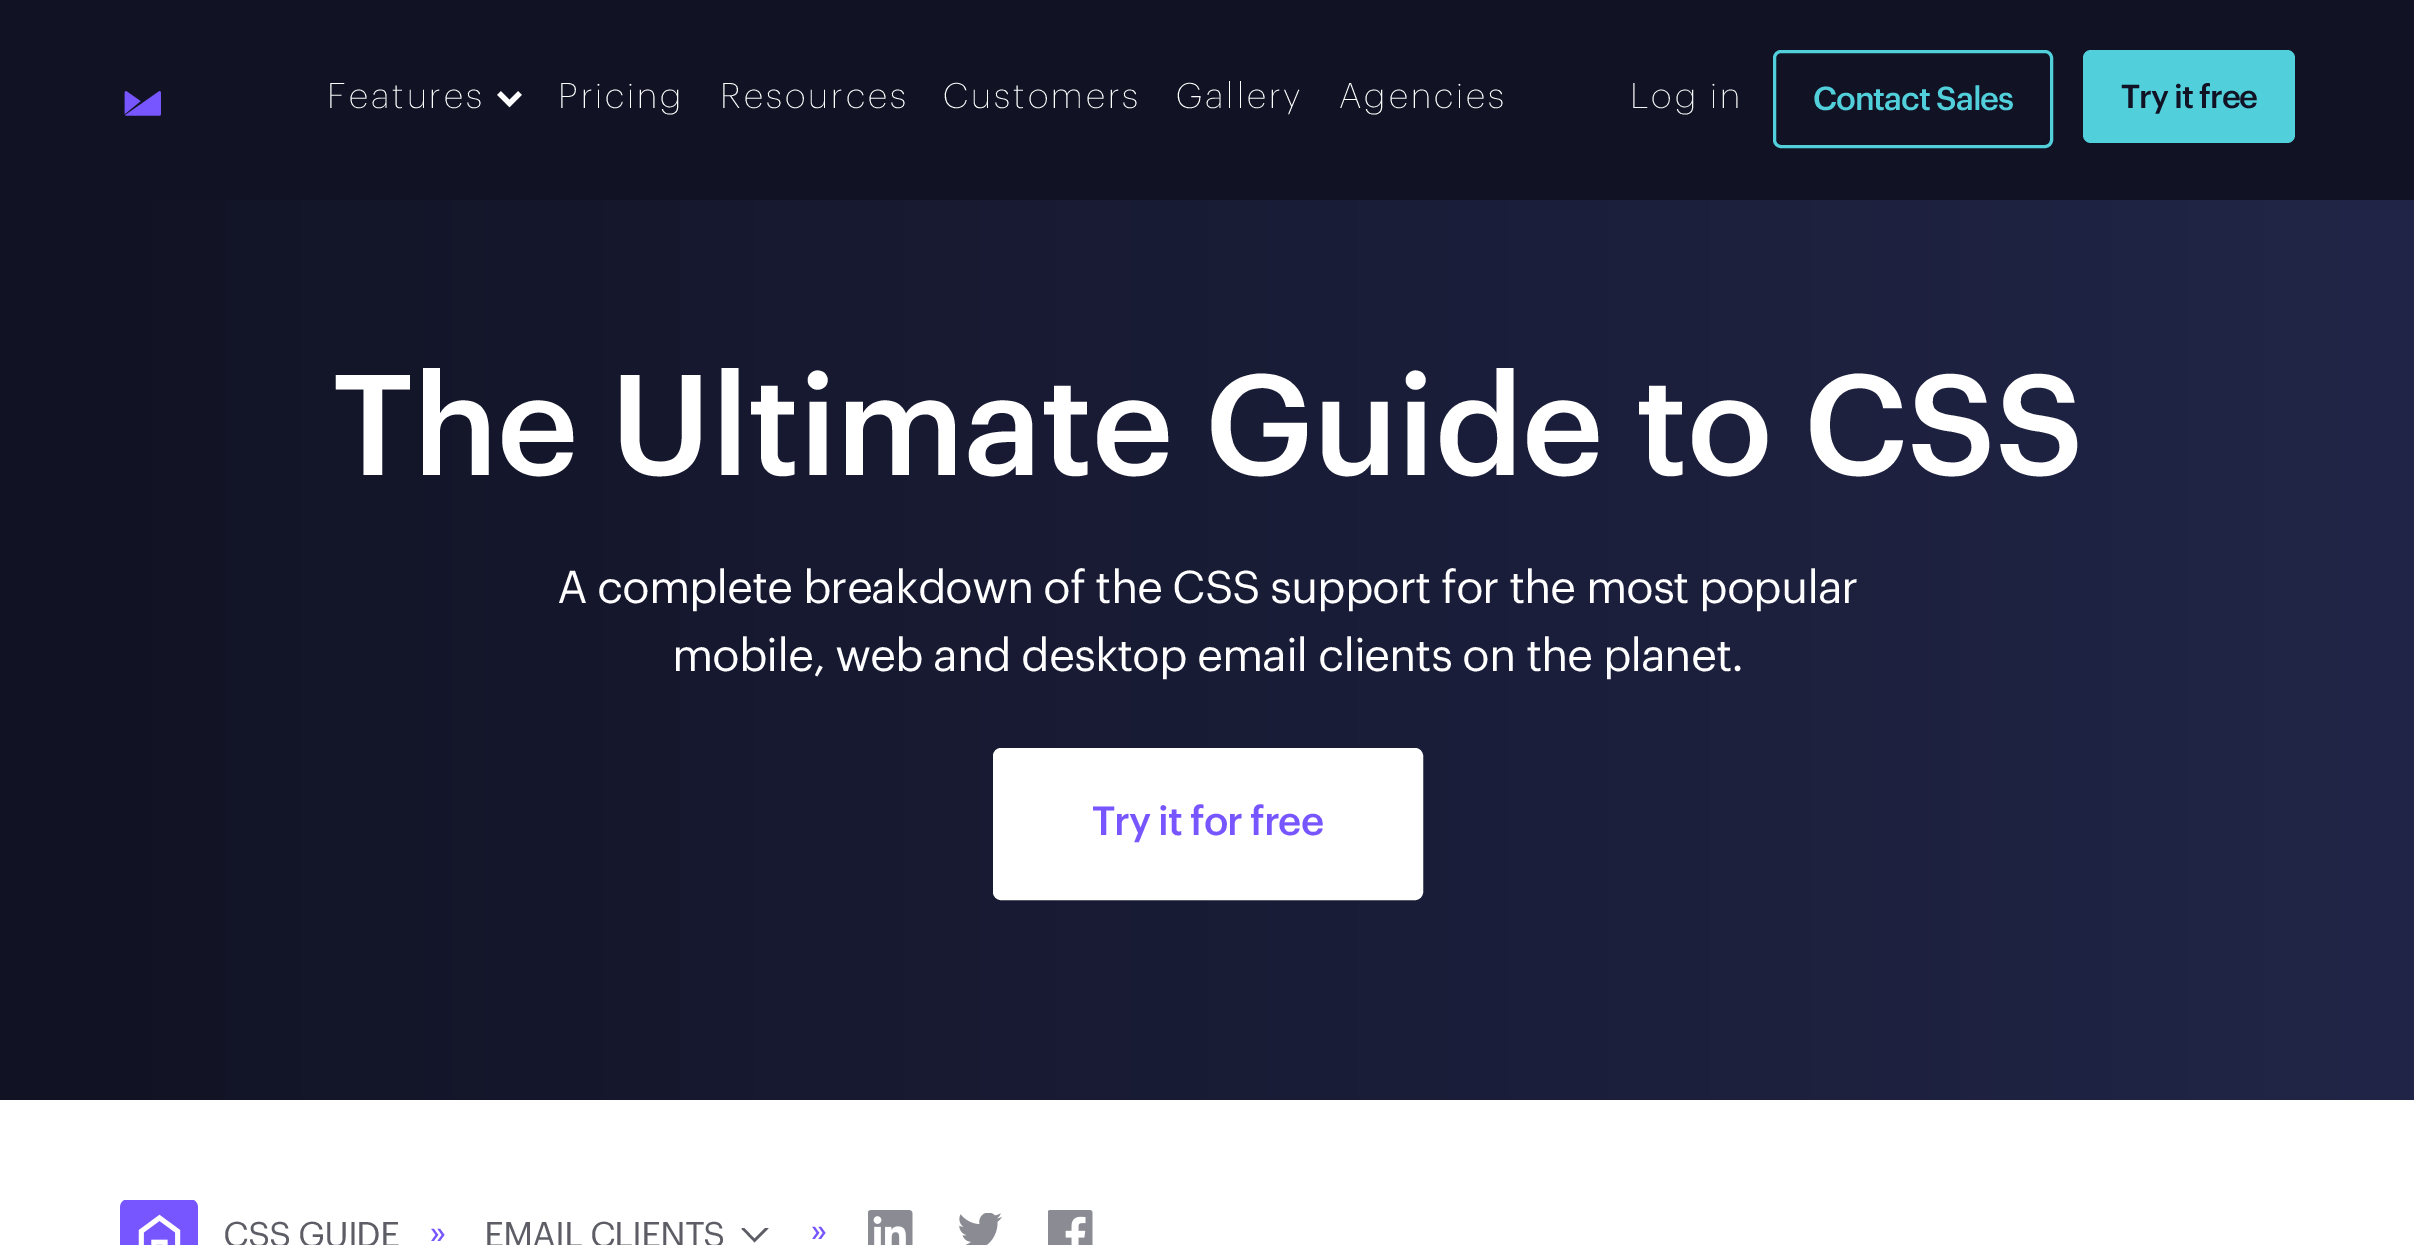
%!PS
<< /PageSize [2414 1245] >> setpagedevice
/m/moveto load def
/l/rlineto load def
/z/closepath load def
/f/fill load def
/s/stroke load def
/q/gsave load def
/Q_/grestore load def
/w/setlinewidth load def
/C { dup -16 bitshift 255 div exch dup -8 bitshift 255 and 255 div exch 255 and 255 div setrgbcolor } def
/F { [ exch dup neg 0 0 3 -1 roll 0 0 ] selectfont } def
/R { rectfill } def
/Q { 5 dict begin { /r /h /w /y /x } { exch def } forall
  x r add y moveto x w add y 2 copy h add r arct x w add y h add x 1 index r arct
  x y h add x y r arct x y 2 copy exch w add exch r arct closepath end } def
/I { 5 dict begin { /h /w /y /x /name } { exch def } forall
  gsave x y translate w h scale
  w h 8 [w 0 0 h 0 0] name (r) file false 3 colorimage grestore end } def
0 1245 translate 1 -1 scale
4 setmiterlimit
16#FFFFFF C
0 0 2414 1245 R
16#111324 C
0 0 2414 200 R
(1.rgb) 124 91 37 25 I
/Graphik-ExtraLight 35 F
16#FFFFFF C
327 108 m 3 0 (Features) ashow
5 w
520 93 m -10.5 10.5 l -10.5 -10.5 l s
558 108 m 3 0 (Pricing) ashow
720 108 m 3 0 (Resources) ashow
943 108 m 3 0 (Customers) ashow
1176 108 m 3 0 (Gallery) ashow
1339 108 m 3 0 (Agencies) ashow
16#F6F6F7 C
1630 108 m 3 0 (Log in) ashow
16#51CFDB C
3 w
1774.5 51.5 277 95 6.5 Q s
/Graphik-Medium 32.5 F
1813 110 m -1.25 0 (Contact Sales) ashow
2083 50 212 93 8 Q f
16#111324 C
2121 108 m -1.25 0 (Try it free) ashow
q 0 200 m 2414 0 l 0 900 l -2414 0 l z clip newpath
<< /ShadingType 2 /ColorSpace /DeviceRGB /Coords [0 650 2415 650] /Extend [true true] /Function << /FunctionType 2 /Domain [0 1] /C0 [.067 .075 .141] /C1 [.129 .145 .278] /N 1 >> >> shfill Q_
/Graphik-Medium 140 F
16#FFFFFF C
332 475 m -1.25 0 (The Ultimate Guide to CSS) ashow
/Graphik-Regular 45 F
557 603 m -1.25 0 (A complete breakdown of the CSS support for the most popular) ashow
672 671 m -1.25 0 (mobile, web and desktop email clients on the planet.) ashow
994.5 749.5 427 149 6.5 Q q f Q_
s
/Graphik-Medium 40 F
16#7856FF C
1092 835 m -1.25 0 (Try it for free) ashow
(2.rgb) 120 1200 78 45 I
/Graphik-Regular 35 F
16#5D5D66 C
223 1247 m -1.25 0 (CSS GUIDE) ashow
16#7856FF C
429 1244 m -1.25 0 (») ashow
16#5D5D66 C
484 1247 m -1.25 0 (EMAIL CLIENTS) ashow
q
740 1228 30 15 rectclip
2.5 w
742.5 1228 m 12 12.5 l 13 -13 l s
Q_
16#7856FF C
810 1242 m -1.25 0 (») ashow
(3.rgb) 868 1210 45 35 I
(4.rgb) 959 1213 43 32 I
(5.rgb) 1048 1210 45 35 I
showpage
